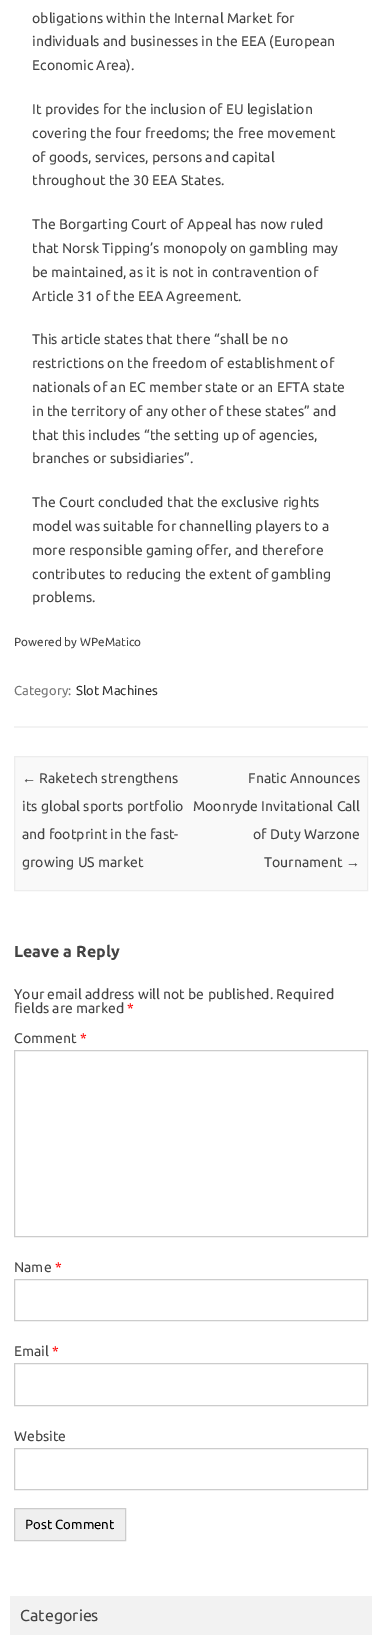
%!PS
<< /PageSize [382 1650] >> setpagedevice
/m/moveto load def
/l/rlineto load def
/z/closepath load def
/f/fill load def
/s/stroke load def
/q/gsave load def
/Q_/grestore load def
/C { dup -16 bitshift 255 div exch dup -8 bitshift 255 and 255 div exch 255 and 255 div setrgbcolor } def
/F { [ exch dup neg 0 0 3 -1 roll 0 0 ] selectfont } def
/T { moveto show } def
/R { rectfill } def
0 1650 translate 1 -1 scale
4 setmiterlimit
16#FFFFFF C
0 0 382 1650 R
16#F3F3F3 C
14 726 354 2 R
/Ubuntu-Regular 14 F
16#444444 C
(obligations within the Internal Market for) 32 23 T
(individuals and businesses in the EEA \(European) 32 46 T
(Economic Area\).) 32 70 T
(It provides for the inclusion of EU legislation) 32 114 T
(covering the four freedoms; the free movement) 32 138 T
(of goods, services, persons and capital) 32 162 T
(throughout the 30 EEA States.) 32 185 T
(The Borgarting Court of Appeal has now ruled) 32 229 T
(that Norsk Tipping’s monopoly on gambling may) 32 253 T
(be maintained, as it is not in contravention of) 32 277 T
(Article 31 of the EEA Agreement.) 32 301 T
(This article states that there “shall be no) 32 344 T
(restrictions on the freedom of establishment of) 32 368 T
(nationals of an EC member state or an EFTA state) 32 392 T
(in the territory of any other of these states” and) 32 416 T
(that this includes “the setting up of agencies,) 32 440 T
(branches or subsidiaries”.) 32 463 T
(The Court concluded that the exclusive rights) 32 507 T
(model was suitable for channelling players to a) 32 531 T
(more responsible gaming offer, and therefore) 32 555 T
(contributes to reducing the extent of gambling) 32 579 T
(problems.) 32 602 T
/Ubuntu-Regular 11.75 F
(Powered by WPeMatico) 14 646 T
/Ubuntu-Regular 13 F
16#757575 C
(Category:) 14 695 T
16#333333 C
(Slot Machines) 76 695 T
16#F9F9F9 C
14.5 756.5 m 353 0 l 0 134 l -353 0 l z q f Q_
16#EDEDED C
s
/LiberationSans-Regular 14 F
16#444444 C
(←) 22 783 T
/Ubuntu-Regular 14 F
(Raketech strengthens) 39 783 T
(its global sports portfolio) 22 811 T
(and footprint in the fast-) 22 839 T
(growing US market) 22 867 T
(Fnatic Announces) 248 783 T
(Moonryde Invitational Call) 193 811 T
(of Duty Warzone) 253 839 T
(Tournament) 264 867 T
/LiberationSans-Regular 14 F
(→) 346 867 T
/Ubuntu-Bold 16 F
(Leave a Reply) 14 957 T
/Ubuntu-Regular 14 F
(Your email address will not be published. Required) 14 999 T
(fields are marked) 14 1013 T
16#FF0000 C
(*) 127 1013 T
16#444444 C
(Comment) 14 1043 T
16#FF0000 C
(*) 80 1043 T
16#CCCCCC C
14.5 1050.5 353 186 rectstroke
16#444444 C
(Name) 14 1272 T
16#FF0000 C
(*) 55 1272 T
16#CCCCCC C
14.5 1279.5 353 41 rectstroke
16#444444 C
(Email) 14 1356 T
16#FF0000 C
(*) 52 1356 T
16#CCCCCC C
14.5 1363.5 353 42 rectstroke
16#444444 C
(Website) 14 1441 T
16#CCCCCC C
14.5 1448.5 353 41 rectstroke
16#EFEFEF C
14.5 1508.5 m 111 0 l 0 32 l -111 0 l z q f Q_
16#CCCCCC C
s
/Ubuntu-Regular 13.25 F
16#000000 C
(Post Comment) 25 1529 T
16#F2F2F2 C
10 1596 362 39 R
/Ubuntu-Regular 16 F
16#444444 C
(Categories) 20 1621 T
showpage
